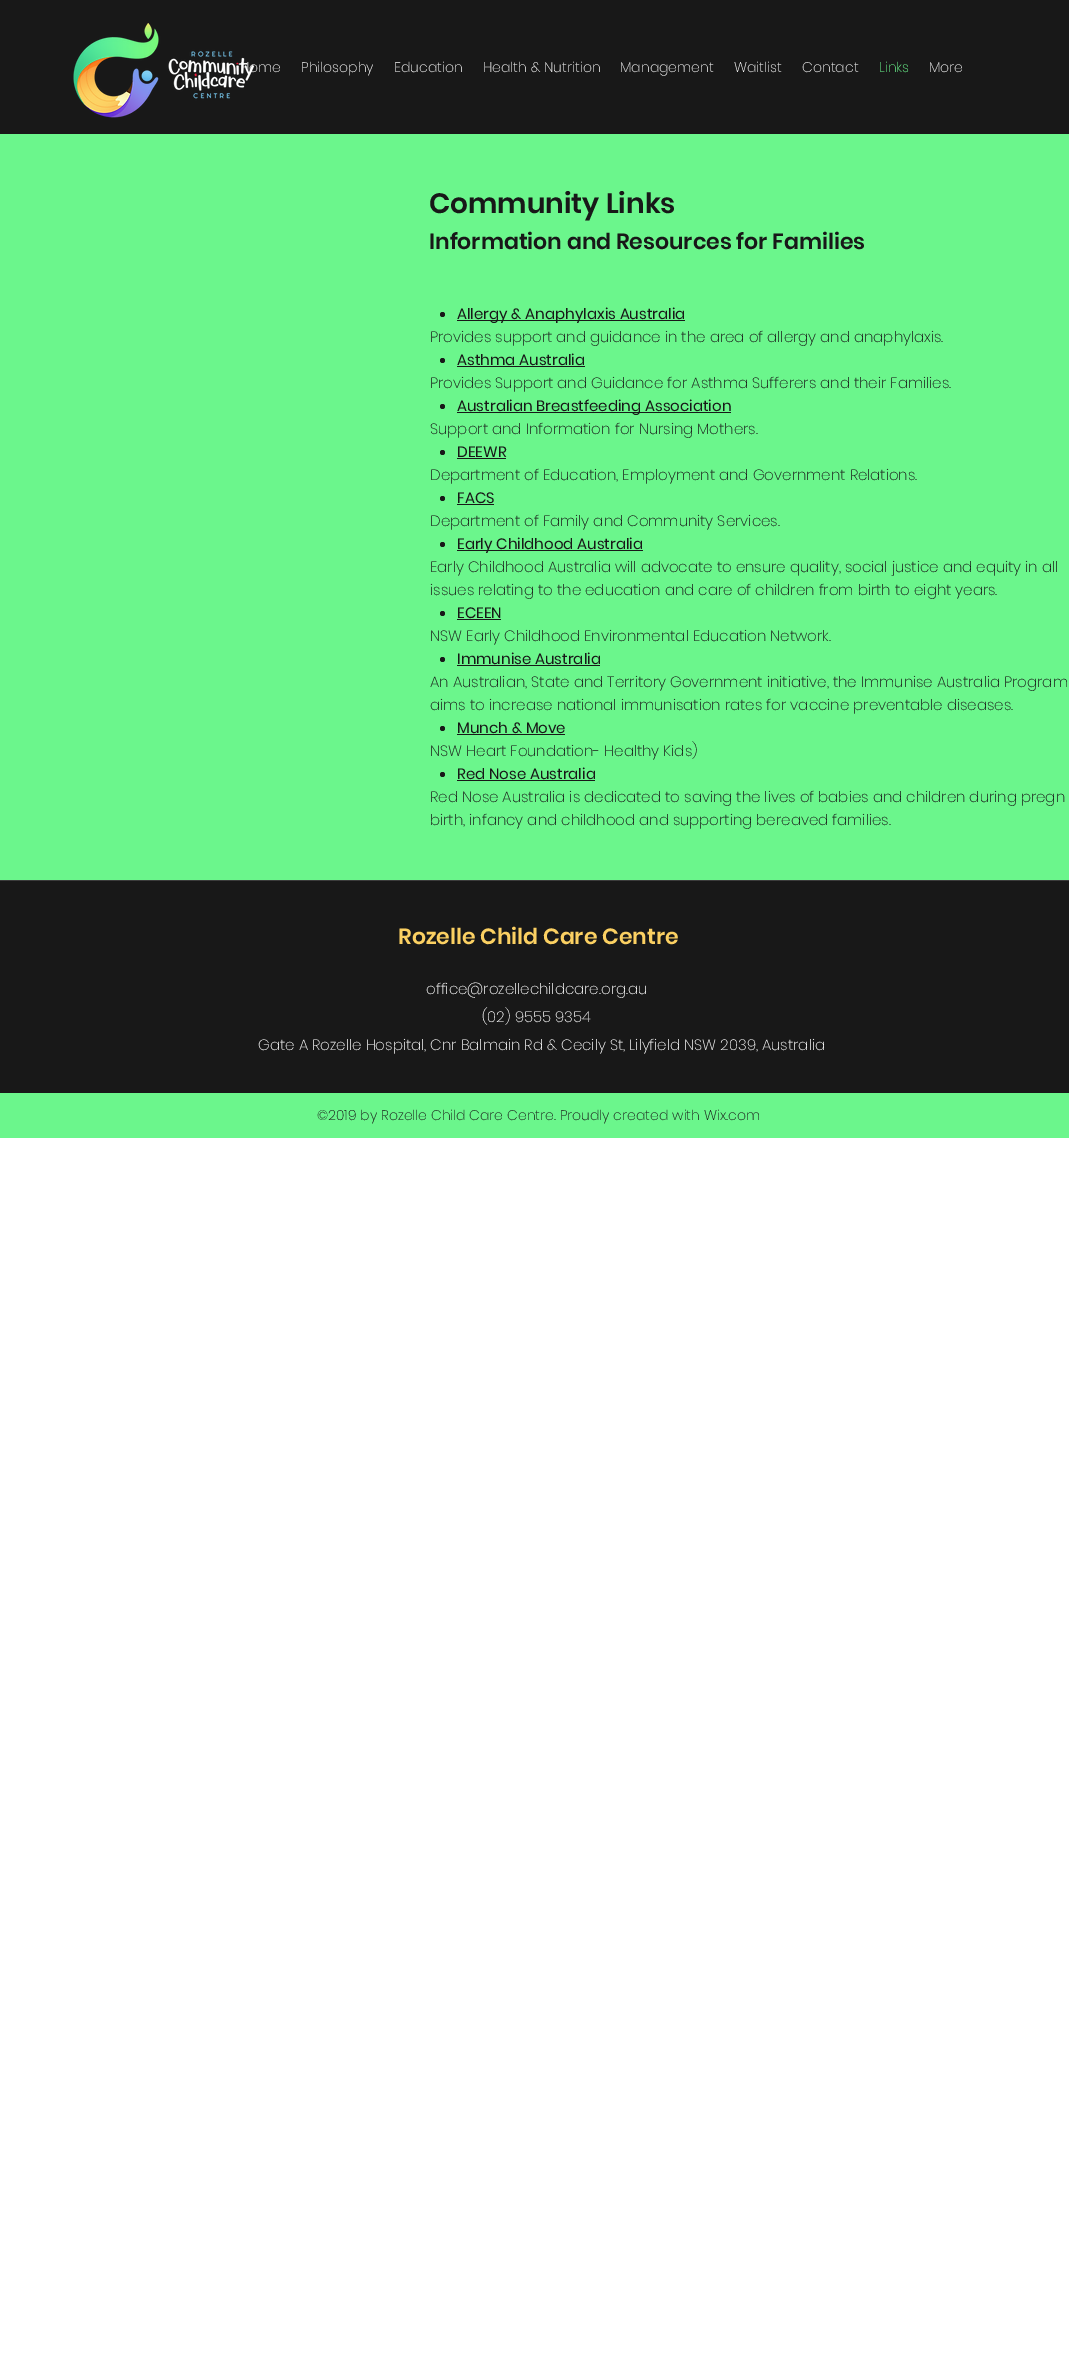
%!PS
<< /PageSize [1069 2372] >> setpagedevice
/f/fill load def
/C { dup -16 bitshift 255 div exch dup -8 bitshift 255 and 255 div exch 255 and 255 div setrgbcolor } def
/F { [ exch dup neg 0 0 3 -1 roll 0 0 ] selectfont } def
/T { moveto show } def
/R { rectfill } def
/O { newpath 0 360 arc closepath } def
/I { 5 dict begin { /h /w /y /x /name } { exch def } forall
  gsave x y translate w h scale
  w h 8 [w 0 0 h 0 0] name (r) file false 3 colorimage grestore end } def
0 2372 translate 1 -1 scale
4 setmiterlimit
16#FFFFFF C
0 0 1069 2372 R
16#181818 C
0 0 1069 134 R
(1.rgb) 73 23 182 95 I
/Poppins-ExtraLight 14 F
16#FFFFFF C
(Home) 240 72 T
(Philosophy) 301 72 T
(Education) 394 72 T
(Health & Nutrition) 483 72 T
(Management) 620 72 T
(Waitlist) 734 72 T
(Contact) 802 72 T
16#6BF68C C
(Links) 879 72 T
16#FFFFFF C
(More) 929 72 T
16#6BF68C C
0 134 1069 746 R
/Poppins-SemiBold 28 F
16#181818 C
(Community Links) 429 213 T
/Poppins-SemiBold 22 F
(Information and Resources for Families) 429 249 T
442.5 314.5 2.5 O f
457 320 228 1 R
/Poppins-Regular 15 F
(Allergy & Anaphylaxis Australia) 457 319 T
/Poppins-ExtraLight 15 F
(Provides support and guidance in the area of allergy and anaphylaxis.) 430 342 T
442.5 360.5 2.5 O f
/Poppins-Regular 15 F
(Asthma Australia) 457 365 T
457 366 128 1 R
/Poppins-ExtraLight 15 F
(Provides Support and Guidance for Asthma Sufferers and their Families.) 430 388 T
442.5 406.5 2.5 O f
457 412 274 1 R
/Poppins-Regular 15 F
(Australian Breastfeeding Association) 457 411 T
/Poppins-ExtraLight 15 F
(Support and Information for Nursing Mothers.) 430 434 T
442.5 452.5 2.5 O f
/Poppins-Regular 15 F
(DEEWR) 457 457 T
457 458 49 1 R
/Poppins-ExtraLight 15 F
(Department of Education, Employment and Government Relations.) 430 480 T
442.5 498.5 2.5 O f
/Poppins-Regular 15 F
(FACS) 457 503 T
457 504 37 1 R
/Poppins-ExtraLight 15 F
(Department of Family and Community Services.) 430 526 T
442.5 544.5 2.5 O f
457 550 186 1 R
/Poppins-Regular 15 F
(Early Childhood Australia) 457 549 T
/Poppins-ExtraLight 15 F
(Early Childhood Australia will advocate to ensure quality, social justice and equity in all) 430 572 T
(issues relating to the education and care of children from birth to eight years.) 430 595 T
442.5 613.5 2.5 O f
/Poppins-Regular 15 F
(ECEEN) 457 618 T
457 619 44 1 R
/Poppins-ExtraLight 15 F
(NSW Early Childhood Environmental Education Network.) 430 641 T
442.5 659.5 2.5 O f
/Poppins-Regular 15 F
(Immunise Australia) 457 664 T
457 665 143 1 R
/Poppins-ExtraLight 15 F
(An Australian, State and Territory Government initiative, the Immunise Australia Program) 430 687 T
(aims to increase national immunisation rates for vaccine preventable diseases.) 430 710 T
442.5 728.5 2.5 O f
/Poppins-Regular 15 F
(Munch & Move) 457 733 T
457 734 108 1 R
/Poppins-ExtraLight 15 F
(NSW Heart Foundation- Healthy Kids\)) 430 756 T
442.5 774.5 2.5 O f
/Poppins-Regular 15 F
(Red Nose Australia) 457 779 T
457 780 138 1 R
/Poppins-ExtraLight 15 F
(Red Nose Australia is dedicated to saving the lives of babies and children during pregn) 430 802 T
(birth, infancy and childhood and supporting bereaved families.) 430 825 T
0 881 1069 212 R
16#3B3B3B C
0 880 1069 1 R
/Poppins-SemiBold 22 F
16#FBD062 C
(Rozelle Child Care Centre) 398 944 T
/Poppins-ExtraLight 15 F
16#FFFFFF C
(office@rozellechildcare.org.au) 426 994 T
(\(02\) 9555 9354) 482 1022 T
(Gate A Rozelle Hospital, Cnr Balmain Rd & Cecily St, Lilyfield NSW 2039, Australia) 258 1050 T
16#6BF68C C
0 1093 1069 45 R
/Poppins-ExtraLight 14 F
16#181818 C
(©2019 by Rozelle Child Care Centre. Proudly created with Wix.com) 317 1120 T
showpage
